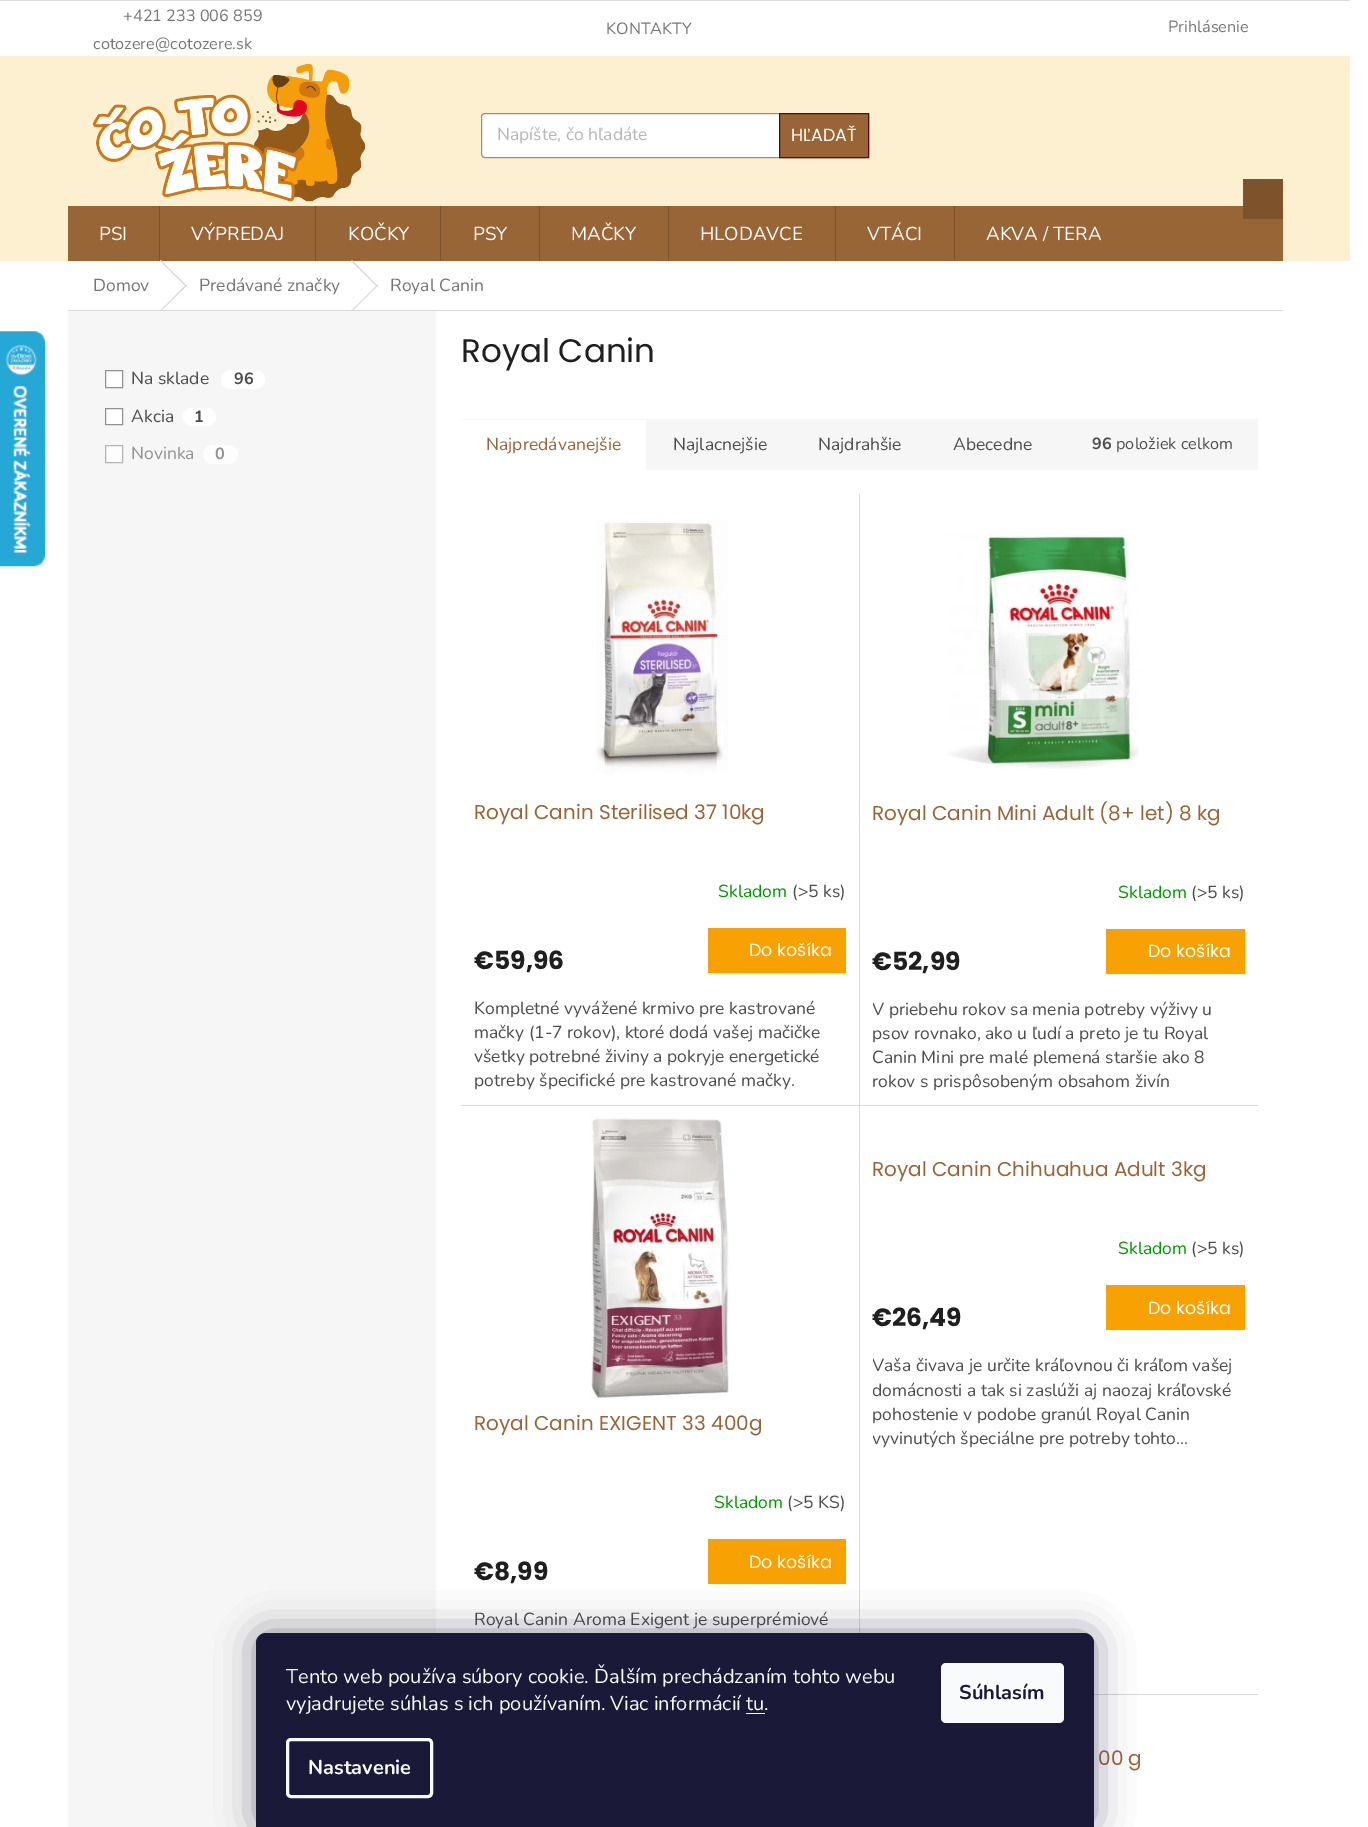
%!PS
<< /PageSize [1368 1827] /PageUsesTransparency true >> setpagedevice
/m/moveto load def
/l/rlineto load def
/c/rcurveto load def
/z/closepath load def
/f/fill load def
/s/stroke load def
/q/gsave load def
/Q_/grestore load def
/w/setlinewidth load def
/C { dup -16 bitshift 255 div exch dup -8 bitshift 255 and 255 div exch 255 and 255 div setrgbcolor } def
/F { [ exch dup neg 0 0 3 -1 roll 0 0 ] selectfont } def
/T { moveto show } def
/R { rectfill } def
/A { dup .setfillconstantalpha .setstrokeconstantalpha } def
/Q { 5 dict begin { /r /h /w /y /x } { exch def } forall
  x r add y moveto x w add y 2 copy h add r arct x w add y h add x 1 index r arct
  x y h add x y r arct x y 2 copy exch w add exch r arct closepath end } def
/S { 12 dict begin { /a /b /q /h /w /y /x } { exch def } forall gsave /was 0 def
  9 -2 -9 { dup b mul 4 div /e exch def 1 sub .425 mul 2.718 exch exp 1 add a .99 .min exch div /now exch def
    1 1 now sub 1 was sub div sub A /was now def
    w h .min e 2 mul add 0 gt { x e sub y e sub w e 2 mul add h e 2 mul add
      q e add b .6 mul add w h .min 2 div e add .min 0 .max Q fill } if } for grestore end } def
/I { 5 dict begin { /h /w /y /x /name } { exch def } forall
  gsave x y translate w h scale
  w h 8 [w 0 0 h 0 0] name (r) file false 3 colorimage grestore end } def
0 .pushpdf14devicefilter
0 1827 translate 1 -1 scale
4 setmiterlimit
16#FFFFFF C
0 0 1368 1827 R
(1.rgb) 0 331 45 236 I
16#DADADA C
0 0 1350 1 R
/Nunito-Regular 16.25 F
16#767676 C
(+421 233 006 859) 123 21 T
(cotozere@cotozere.sk) 93 49 T
(KONTAKTY) 606 34 T
(Prihlásenie) 1168 32 T
16#FCF0D1 C
0 56 1350 205 R
(2.rgb) 92 63 273 139 I
16#FFFFFF C
481.5 113.5 387 44 3.5 Q q f Q_
16#919191 C
s
/Nunito-Regular 17.5 F
16#B6B6B6 C
(Napíšte, čo hľadáte) 497 140 T
16#986536 C
779.5 113.5 m 89 0 l 0 44 l -89 0 l z q f Q_
16#680100 C
s
/Poppins-Regular 17.5 F
16#FFFFFF C
(HĽADAŤ) 791 141 T
16#986536 C
68 206 1215 55 R
16#7D532C C
1243 179 40 40 R
/Nunito-Regular 18.75 F
16#FFFFFF C
(PSI) 99 240 T
16#7D532C C
159 206 1 55 R
16#FFFFFF C
(VÝPREDAJ) 191 240 T
16#7D532C C
315 206 1 55 R
16#FFFFFF C
(KOČKY) 348 240 T
16#7D532C C
440 206 1 55 R
16#FFFFFF C
(PSY) 473 240 T
16#7D532C C
539 206 1 55 R
16#FFFFFF C
(MAČKY) 571 240 T
16#7D532C C
668 206 1 55 R
16#FFFFFF C
(HLODAVCE) 700 240 T
16#7D532C C
835 206 1 55 R
16#FFFFFF C
(VTÁCI) 867 240 T
16#7D532C C
954 206 1 55 R
16#FFFFFF C
(AKVA / TERA) 986 240 T
16#DADADA C
68 310 1215 1 R
/Nunito-Regular 17.5 F
16#767676 C
(Domov) 93 291 T
16#DADADA C
160 261 m .5 -1 l 26.5 26 l -1 1 l z f
16#F6F6F6 C
68 311 368 1516 R
16#DADADA C
186 284.5 m 1 1 l -26.5 26 l -.5 -.5 l z f
16#767676 C
(Predávané značky) 199 291 T
16#DADADA C
351 261 m 1 -1 l 26 26 l -.5 1 l z f
377.5 284.5 m .5 1 l -26 26 l -1 -.5 l z f
16#767676 C
(Royal Canin) 390 291 T
16#FFFFFF C
105.5 370.5 m 17 0 l 0 17 l -17 0 l z q f Q_
16#919191 C
s
16#4D4D4D C
(Na sklade) 131 384 T
16#FFFFFF C
221 370 44 19 9.5 Q f
/Nunito-Bold 16.25 F
16#4D4D4D C
(96) 234 384 T
16#FFFFFF C
105.5 408.5 m 17 0 l 0 16 l -17 0 l z q f Q_
16#919191 C
s
/Nunito-Regular 17.5 F
16#4D4D4D C
(Akcia) 131 422 T
16#FFFFFF C
183 408 33 18 9 Q f
/Nunito-Bold 16.25 F
16#4D4D4D C
(1) 194 422 T
16#FDFDFD C
105.5 445.5 m 17 0 l 0 17 l -17 0 l z q f Q_
16#B4B4B4 C
s
/Nunito-Regular 17.5 F
16#929292 C
(Novinka) 131 459 T
16#FDFDFD C
203 445 35 19 9.5 Q f
/Nunito-Bold 16.25 F
16#929292 C
(0) 215 459 T
/Poppins-Regular 32.5 F
16#1F1F1F C
(Royal Canin) 461 362 T
16#F6F6F6 C
461 419 797 51 R
16#FFFFFF C
461 420 185 50 R
/Nunito-Regular 17.5 F
16#986536 C
(Najpredávanejšie) 486 450 T
16#4D4D4D C
(Najlacnejšie) 673 450 T
(Najdrahšie) 818 450 T
(Abecedne) 953 450 T
/Nunito-Bold 16.25 F
(96) 1092 449 T
/Nunito-Regular 16.25 F
(položiek celkom) 1116 449 T
16#DADADA C
859 494 1 611 R
(3.rgb) 596 520 132 253 I
/Poppins-Regular 20 F
16#986536 C
(Royal Canin Sterilised 37 10kg) 474 819 T
/Nunito-Regular 17.5 F
16#009901 C
(Skladom) 718 897 T
16#4D4D4D C
(\(>5 ks\)) 792 897 T
/Poppins-Bold 25 F
16#1F1F1F C
(€59,96) 474 969 T
16#F8A102 C
708 928 138 45 R
/Poppins-Regular 17.5 F
16#FFFFFF C
(Do košíka) 749 956 T
/Nunito-Regular 17.5 F
16#4D4D4D C
(Kompletné vyvážené krmivo pre kastrované) 474 1014 T
(mačky \(1-7 rokov\), ktoré dodá vašej mačičke) 474 1038 T
(všetky potrebné živiny a pokryje energetické) 474 1062 T
(potreby špecifické pre kastrované mačky.) 474 1086 T
(4.rgb) 947 534 193 235 I
/Poppins-Regular 20 F
16#986536 C
(Royal Canin Mini Adult \(8+ let\) 8 kg) 872 820 T
/Nunito-Regular 17.5 F
16#009901 C
(Skladom) 1118 898 T
16#4D4D4D C
(\(>5 ks\)) 1191 898 T
/Poppins-Bold 25 F
16#1F1F1F C
(€52,99) 872 970 T
16#F8A102 C
1106 929 139 45 R
/Poppins-Regular 17.5 F
16#FFFFFF C
(Do košíka) 1148 957 T
q
873 998 372 95 rectclip
/Nunito-Regular 17.5 F
16#4D4D4D C
(V priebehu rokov sa menia potreby výživy u) 872 1015 T
Q_
/Nunito-Regular 17.5 F
16#4D4D4D C
(psov rovnako, ako u ľudí a preto je tu Royal) 872 1039 T
(Canin Mini pre malé plemená staršie ako 8) 872 1063 T
(rokov s prispôsobeným obsahom živín) 872 1087 T
/Poppins-Regular 20 F
16#986536 C
(Royal Canin Chihuahua Adult 3kg) 872 1176 T
/Nunito-Regular 17.5 F
16#009901 C
(Skladom) 1118 1254 T
16#4D4D4D C
(\(>5 ks\)) 1191 1254 T
/Poppins-Bold 25 F
16#1F1F1F C
(€26,49) 872 1326 T
16#F8A102 C
1106 1285 139 45 R
/Poppins-Regular 17.5 F
16#FFFFFF C
(Do košíka) 1148 1314 T
q
873 1354 372 95 rectclip
/Nunito-Regular 17.5 F
16#4D4D4D C
(Vaša čivava je určite kráľovnou či kráľom vašej) 872 1371 T
(domácnosti a tak si zaslúži aj naozaj kráľovské) 872 1396 T
Q_
/Nunito-Regular 17.5 F
16#4D4D4D C
(pohostenie v podobe granúl Royal Canin) 872 1420 T
q
873 1354 372 95 rectclip
(vyvinutých špeciálne pre potreby tohto...) 872 1444 T
Q_
16#DADADA C
461 1105 797 1 R
859 1105 1 528 R
(5.rgb) 590 1118 141 280 I
/Poppins-Regular 20 F
16#986536 C
(Royal Canin EXIGENT 33 400g) 474 1430 T
/Nunito-Regular 17.5 F
16#009901 C
(Skladom) 714 1508 T
16#4D4D4D C
(\(>5 KS\)) 787 1508 T
/Poppins-Bold 25 F
16#1F1F1F C
(€8,99) 474 1580 T
16#F8A102 C
708 1539 138 45 R
/Poppins-Regular 17.5 F
16#FFFFFF C
(Do košíka) 749 1568 T
/Nunito-Regular 17.5 F
16#4D4D4D C
(Royal Canin Aroma Exigent je superprémiové) 474 1625 T
16#DADADA C
1094 1694 164 1 R
/Poppins-Regular 20 F
16#986536 C
(00 g) 1098 1765 T
16#1B1939 C
256 1633 838 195 10 19 .5 S
16#1A1937 C
266 1633 m 818 0 l 5.5 0 10 4.5 10 10 c 0 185 l -838 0 l 0 -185 l 0 -5.5 4.5 -10 10 -10 c z f
/Nunito-Regular 20 F
16#F8FAFB C
(Tento web používa súbory cookie. Ďalším prechádzaním tohto webu) 286 1683 T
(vyjadrujete súhlas s ich používaním. Viac informácií tu.) 286 1710 T
746 1713 19 1 R
3 w
287.5 1739.5 144 57 3.5 Q s
/Nunito-Bold 20 F
(Nastavenie) 308 1774 T
941 1663 123 60 5 Q f
16#1A1937 C
(Súhlasím) 959 1699 T
.poppdf14devicefilter showpage
